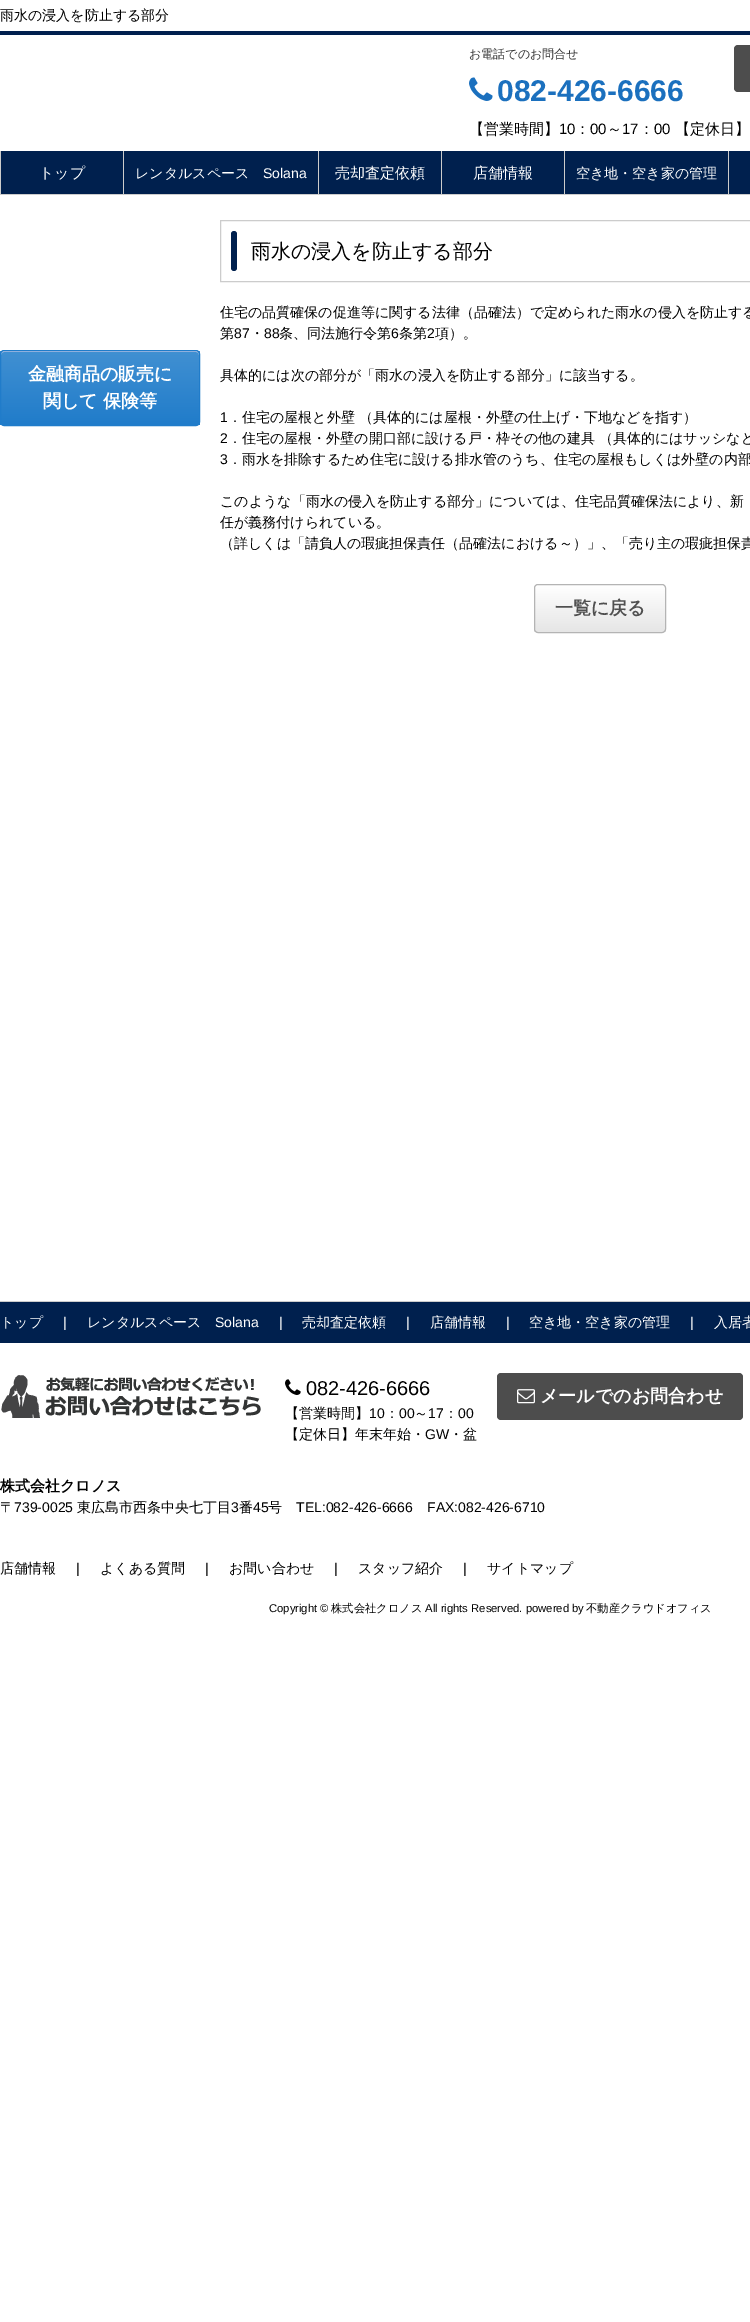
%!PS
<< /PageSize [750 2322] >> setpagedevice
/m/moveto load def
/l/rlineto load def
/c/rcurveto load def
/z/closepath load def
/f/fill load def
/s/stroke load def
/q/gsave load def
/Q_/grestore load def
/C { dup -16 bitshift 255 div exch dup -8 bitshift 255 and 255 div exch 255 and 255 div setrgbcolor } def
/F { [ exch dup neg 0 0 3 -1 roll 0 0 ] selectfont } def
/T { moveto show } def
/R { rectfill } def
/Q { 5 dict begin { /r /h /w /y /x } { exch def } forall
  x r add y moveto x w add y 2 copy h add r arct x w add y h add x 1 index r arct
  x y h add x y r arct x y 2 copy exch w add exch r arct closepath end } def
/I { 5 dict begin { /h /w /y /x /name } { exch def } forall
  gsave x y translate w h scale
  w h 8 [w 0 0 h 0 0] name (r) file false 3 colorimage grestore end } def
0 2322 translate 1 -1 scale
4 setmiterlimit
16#FFFFFF C
0 0 750 2322 R
16#00204E C
0 31 750 4 R
/WenQuanYiZenHei-Medium 14 F
16#000000 C
(雨水の浸入を防止する部分) 0 20 T
/WenQuanYiZenHei-Medium 12 F
16#333333 C
(お電話でのお問合せ) 469 58 T
(1.rgb) 469 77 24 24 I
/LiberationSans-Bold 30 F
16#1B70BE C
(082-426-6666) 497 101 T
16#4D4D4D C
734 45 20 47 4 Q f
/WenQuanYiZenHei-Medium 15 F
16#000000 C
(【営業時間】) 469 134 T
/LiberationSans-Regular 15 F
(10) 559 134 T
/WenQuanYiZenHei-Medium 15 F
(：) 575 134 T
/LiberationSans-Regular 15 F
(00) 590 134 T
/WenQuanYiZenHei-Medium 15 F
(～) 607 134 T
/LiberationSans-Regular 15 F
(17) 622 134 T
/WenQuanYiZenHei-Medium 15 F
(：) 639 134 T
/LiberationSans-Regular 15 F
(00) 654 134 T
/WenQuanYiZenHei-Medium 15 F
(【定休日】) 675 134 T
16#00204E C
1 151 749 43 R
16#CCCCCC C
0 194 750 1 R
123 151 1 43 R
0 151 1 43 R
16#FFFFFF C
(トップ) 39 178 T
16#CCCCCC C
318 151 1 43 R
/WenQuanYiZenHei-Medium 14 F
16#FFFFFF C
(レンタルスペース) 135 178 T
/LiberationSans-Regular 14 F
(Solana) 263 178 T
16#CCCCCC C
441 151 1 43 R
/WenQuanYiZenHei-Medium 15 F
16#FFFFFF C
(売却査定依頼) 335 178 T
16#CCCCCC C
564 151 1 43 R
16#FFFFFF C
(店舗情報) 473 178 T
16#CCCCCC C
728 151 1 43 R
/WenQuanYiZenHei-Medium 14 F
16#FFFFFF C
(空き地・空き家の管理) 576 178 T
q
0 350 200 76 4 Q clip newpath
q 0 351 m 200 0 l 0 74 l -200 0 l z clip newpath
<< /ShadingType 2 /ColorSpace /DeviceRGB /Coords [100 351 100 425] /Extend [true true] /Function << /FunctionType 2 /Domain [0 1] /C0 [.255 .565 .824] /C1 [.125 .486 .792] /N 1 >> >> shfill Q_
Q_
16#B9C3E4 C
4 352 m 192 0 l 2 0 3 1 3 3 c 0 -2 -1 -4 -3 -4 c -192 0 l -2 0 -3 2 -3 4 c 0 -2 1 -3 3 -3 c z f
16#207CCA C
.5 350.5 199 75 3.5 Q s
/WenQuanYiZenHei-Bold 18 F
16#FFFFFF C
(金融商品の販売に) 28 380 T
(関して 保険等) 43 407 T
16#CCCCCC C
220.5 220.5 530 61 rectstroke
16#00204E C
231 231 6 40 3 Q f
/WenQuanYiZenHei-Medium 20 F
16#000000 C
(雨水の浸入を防止する部分) 251 258 T
/WenQuanYiZenHei-Medium 14 F
(住宅の品質確保の促進等に関する法律（品確法）で定められた雨水の侵入を防止する) 220 317 T
(第) 220 338 T
/LiberationSans-Regular 14 F
(87) 234 338 T
/WenQuanYiZenHei-Medium 14 F
(・) 250 338 T
/LiberationSans-Regular 14 F
(88) 264 338 T
/WenQuanYiZenHei-Medium 14 F
(条、同法施行令第) 279 338 T
/LiberationSans-Regular 14 F
(6) 391 338 T
/WenQuanYiZenHei-Medium 14 F
(条第) 399 338 T
/LiberationSans-Regular 14 F
(2) 427 338 T
/WenQuanYiZenHei-Medium 14 F
(項）。) 435 338 T
(具体的には次の部分が「雨水の浸入を防止する部分」に該当する。) 220 380 T
/LiberationSans-Regular 14 F
(1) 220 422 T
/WenQuanYiZenHei-Medium 14 F
(．住宅の屋根と外壁 （具体的には屋根・外壁の仕上げ・下地などを指す）) 228 422 T
/LiberationSans-Regular 14 F
(2) 220 443 T
/WenQuanYiZenHei-Medium 14 F
(．住宅の屋根・外壁の開口部に設ける戸・枠その他の建具 （具体的にはサッシなど) 228 443 T
/LiberationSans-Regular 14 F
(3) 220 464 T
/WenQuanYiZenHei-Medium 14 F
(．雨水を排除するため住宅に設ける排水管のうち、住宅の屋根もしくは外壁の内部) 228 464 T
(このような「雨水の侵入を防止する部分」については、住宅品質確保法により、新) 220 506 T
(任が義務付けられている。) 220 527 T
(（詳しくは「請負人の瑕疵担保責任（品確法における～）」、「売り主の瑕疵担保責) 220 548 T
q
534 584 132 49 4 Q clip newpath
q 534 585 m 132 0 l 0 47 l -132 0 l z clip newpath
<< /ShadingType 2 /ColorSpace /DeviceRGB /Coords [600 585 600 632] /Extend [true true] /Function << /FunctionType 2 /Domain [0 1] /C0 [1 1 1] /C1 [.902 .902 .902] /N 1 >> >> shfill Q_
Q_
16#B4B4B4 C
534.5 584.5 131 48 3.5 Q s
/WenQuanYiZenHei-Bold 18 F
16#505050 C
(一覧に戻る) 555 614 T
16#CCCCCC C
0 1301 750 1 R
16#00204E C
0 1302 750 41 R
/WenQuanYiZenHei-Medium 14 F
16#FFFFFF C
(トップ) 0 1327 T
/LiberationSans-Regular 14 F
(|) 63 1327 T
/WenQuanYiZenHei-Medium 14 F
(レンタルスペース) 87 1327 T
/LiberationSans-Regular 14 F
(Solana) 215 1327 T
(|) 279 1327 T
/WenQuanYiZenHei-Medium 14 F
(売却査定依頼) 302 1327 T
/LiberationSans-Regular 14 F
(|) 406 1327 T
/WenQuanYiZenHei-Medium 14 F
(店舗情報) 430 1327 T
/LiberationSans-Regular 14 F
(|) 506 1327 T
/WenQuanYiZenHei-Medium 14 F
(空き地・空き家の管理) 529 1327 T
/LiberationSans-Regular 14 F
(|) 690 1327 T
/WenQuanYiZenHei-Medium 14 F
(入居者) 714 1327 T
(2.rgb) 1 1375 260 43 I
(3.rgb) 285 1379 16 16 I
/LiberationSans-Regular 20 F
16#000000 C
(082-426-6666) 306 1395 T
/WenQuanYiZenHei-Medium 14 F
(【営業時間】) 285 1418 T
/LiberationSans-Regular 14 F
(10) 369 1418 T
/WenQuanYiZenHei-Medium 14 F
(：) 385 1418 T
/LiberationSans-Regular 14 F
(00) 399 1418 T
/WenQuanYiZenHei-Medium 14 F
(～) 414 1418 T
/LiberationSans-Regular 14 F
(17) 428 1418 T
/WenQuanYiZenHei-Medium 14 F
(：) 444 1418 T
/LiberationSans-Regular 14 F
(00) 458 1418 T
/WenQuanYiZenHei-Medium 14 F
(【定休日】年末年始・) 285 1439 T
/LiberationSans-Regular 14 F
(GW) 425 1439 T
/WenQuanYiZenHei-Medium 14 F
(・盆) 449 1439 T
16#4D4D4D C
497 1373 246 47 4 Q f
(4.rgb) 517 1389 18 15 I
/WenQuanYiZenHei-Bold 18 F
16#FFFFFF C
(メールでのお問合わせ) 540 1402 T
/WenQuanYiZenHei-Bold 15 F
16#000000 C
(株式会社クロノス) 0 1491 T
/WenQuanYiZenHei-Medium 14 F
(〒) 0 1512 T
/LiberationSans-Regular 14 F
(739-0025) 14 1512 T
/WenQuanYiZenHei-Medium 14 F
(東広島市西条中央七丁目) 77 1512 T
/LiberationSans-Regular 14 F
(3) 231 1512 T
/WenQuanYiZenHei-Medium 14 F
(番) 239 1512 T
/LiberationSans-Regular 14 F
(45) 253 1512 T
/WenQuanYiZenHei-Medium 14 F
(号) 268 1512 T
/LiberationSans-Regular 14 F
(TEL:082-426-6666) 296 1512 T
(FAX:082-426-6710) 427 1512 T
/WenQuanYiZenHei-Medium 14 F
(店舗情報) 0 1573 T
/LiberationSans-Regular 14 F
(|) 76 1573 T
/WenQuanYiZenHei-Medium 14 F
(よくある質問) 100 1573 T
/LiberationSans-Regular 14 F
(|) 205 1573 T
/WenQuanYiZenHei-Medium 14 F
(お問い合わせ) 229 1573 T
/LiberationSans-Regular 14 F
(|) 334 1573 T
/WenQuanYiZenHei-Medium 14 F
(スタッフ紹介) 358 1573 T
/LiberationSans-Regular 14 F
(|) 463 1573 T
/WenQuanYiZenHei-Medium 14 F
(サイトマップ) 487 1573 T
/LiberationSans-Regular 11.25 F
(Copyright ©) 269 1612 T
/WenQuanYiZenHei-Medium 11.25 F
(株式会社クロノス) 331 1612 T
/LiberationSans-Regular 11.25 F
(All rights Reserved. powered by) 425 1612 T
/WenQuanYiZenHei-Medium 11.25 F
(不動産クラウドオフィス) 586 1612 T
showpage
